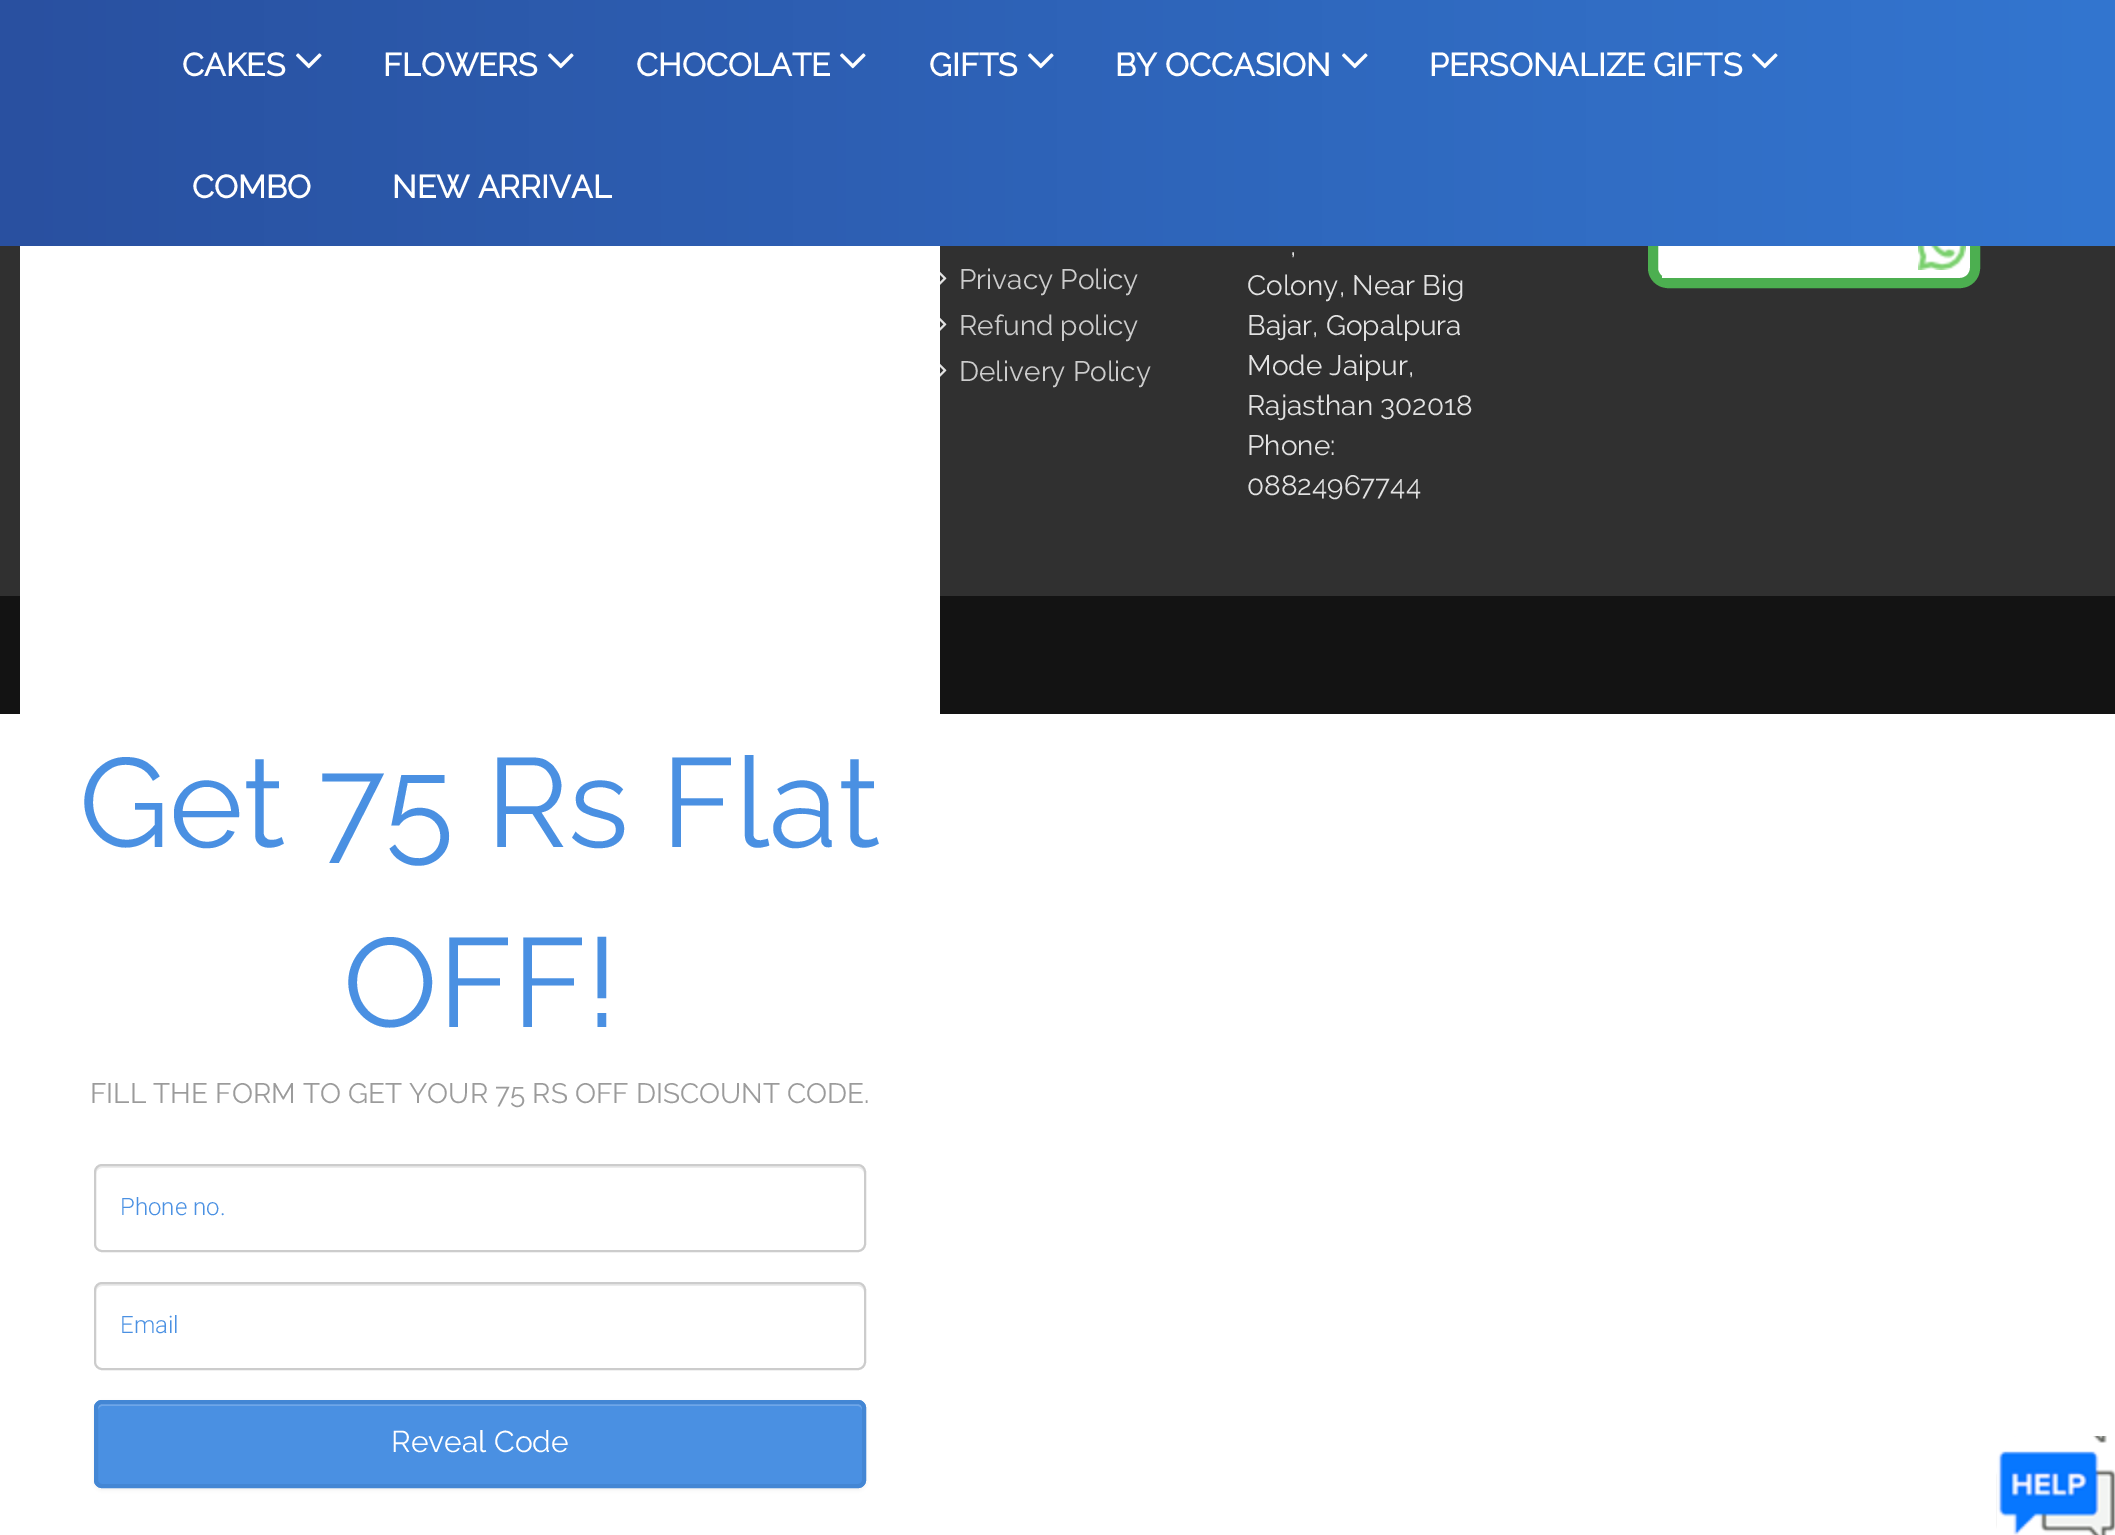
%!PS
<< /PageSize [2115 1535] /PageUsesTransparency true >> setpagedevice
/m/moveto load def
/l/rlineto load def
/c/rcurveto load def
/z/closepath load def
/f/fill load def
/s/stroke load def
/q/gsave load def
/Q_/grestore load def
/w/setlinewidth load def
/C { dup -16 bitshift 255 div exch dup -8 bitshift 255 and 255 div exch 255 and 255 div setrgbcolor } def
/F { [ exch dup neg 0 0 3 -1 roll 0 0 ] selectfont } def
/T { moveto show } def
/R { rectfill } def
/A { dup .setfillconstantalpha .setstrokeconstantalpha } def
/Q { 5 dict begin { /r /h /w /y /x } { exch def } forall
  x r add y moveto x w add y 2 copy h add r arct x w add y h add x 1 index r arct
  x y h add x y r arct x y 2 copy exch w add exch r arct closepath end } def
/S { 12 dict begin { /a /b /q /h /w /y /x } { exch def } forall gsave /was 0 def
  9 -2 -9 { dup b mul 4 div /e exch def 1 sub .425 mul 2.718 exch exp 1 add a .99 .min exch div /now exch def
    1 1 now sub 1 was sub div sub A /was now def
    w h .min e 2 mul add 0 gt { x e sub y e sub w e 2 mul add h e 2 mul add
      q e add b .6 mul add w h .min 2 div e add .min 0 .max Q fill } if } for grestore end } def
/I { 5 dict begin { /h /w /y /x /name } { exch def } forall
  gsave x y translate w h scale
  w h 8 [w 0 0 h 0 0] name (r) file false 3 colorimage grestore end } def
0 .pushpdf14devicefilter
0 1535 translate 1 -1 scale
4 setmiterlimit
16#FFFFFF C
0 0 2115 1535 R
16#303030 C
0 246 2115 350 R
16#FFFFFF C
1653 205 322 78 15 Q q f Q_
16#4CAF50 C
10 w
s
q 0 0 m 2115 0 l 0 246 l -2115 0 l z clip newpath
<< /ShadingType 2 /ColorSpace /DeviceRGB /Coords [0 123 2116 123] /Extend [true true] /Function << /FunctionType 2 /Domain [0 1] /C0 [.161 .314 .627] /C1 [.2 .463 .816] /N 1 >> >> shfill Q_
/Raleway-Bold 32 F
16#FFFFFF C
(CAKES) 182 76 T
(1.rgb) 296 53 26 16 I
(FLOWERS) 383 76 T
(2.rgb) 548 53 26 16 I
(CHOCOLATE) 636 76 T
(3.rgb) 840 53 26 16 I
(GIFTS) 929 76 T
(4.rgb) 1028 53 26 16 I
(BY OCCASION) 1115 76 T
(5.rgb) 1342 53 26 16 I
(PERSONALIZE GIFTS) 1429 76 T
(6.rgb) 1752 53 26 16 I
(COMBO) 192 198 T
(NEW ARRIVAL) 392 198 T
(7.rgb) 940 271 7 14 I
/Raleway-Thin 28 F
16#CCCCCC C
(Privacy Policy) 959 289 T
(7.rgb) 940 317 7 14 I
(Refund policy) 959 335 T
(7.rgb) 940 363 7 14 I
(Delivery Policy) 959 381 T
16#E2E2E2 C
(,) 1290 255 T
(Colony, Near Big) 1247 295 T
(Bajar, Gopalpura) 1247 335 T
(Mode Jaipur,) 1247 375 T
(Rajasthan 302018) 1247 415 T
(Phone:) 1247 455 T
(08824967744) 1247 495 T
(8.rgb) 1918 246 48 24 I
16#FFFFFF C
1662 276 6 2 R
16#131313 C
0 596 2115 118 R
(9.rgb) 1996 1436 119 99 I
16#FFFFFF C
20 246 920 468 R
/Raleway-Thin 126 F
16#4A90E2 C
(Get 75 Rs Flat) 79 847 T
(OFF!) 343 1027 T
/Raleway-Thin 28 F
16#9B9B9B C
(FILL THE FORM TO GET YOUR 75 RS OFF DISCOUNT CODE.) 90 1103 T
16#ECECEC C
102 1168 m 756 0 l 3 0 6 3 6 6 c 0 -2 l 0 -3 -3 -6 -6 -6 c -756 0 l -3 0 -6 3 -6 6 c 0 2 l 0 -3 3 -6 6 -6 c z f
16#CCCCCC C
2 w
95 1165 770 86 7 Q s
/Roboto-Light 24 F
16#4A90E2 C
(Phone no.) 120 1215 T
16#ECECEC C
102 1286 m 756 0 l 3 0 6 3 6 6 c 0 -2 l 0 -3 -3 -6 -6 -6 c -756 0 l -3 0 -6 3 -6 6 c 0 2 l 0 -3 3 -6 6 -6 c z f
16#CCCCCC C
95 1283 770 86 7 Q s
16#4A90E2 C
(Email) 120 1333 T
16#000000 C
94 1402 772 88 8 2 .05 S
16#4A90E2 C
94 1400 772 88 8 Q f
16#6EA6E8 C
102 1406 m 756 0 l 2 0 4 2 4 4 c 0 -2 l 0 -2 -2 -4 -4 -4 c -756 0 l -2 0 -4 2 -4 4 c 0 2 l 0 -2 2 -4 4 -4 c z f
16#4386D4 C
4 w
96 1402 768 84 6 Q s
/Raleway-Thin 30 F
16#FFFFFF C
(Reveal Code) 391 1452 T
.poppdf14devicefilter showpage
